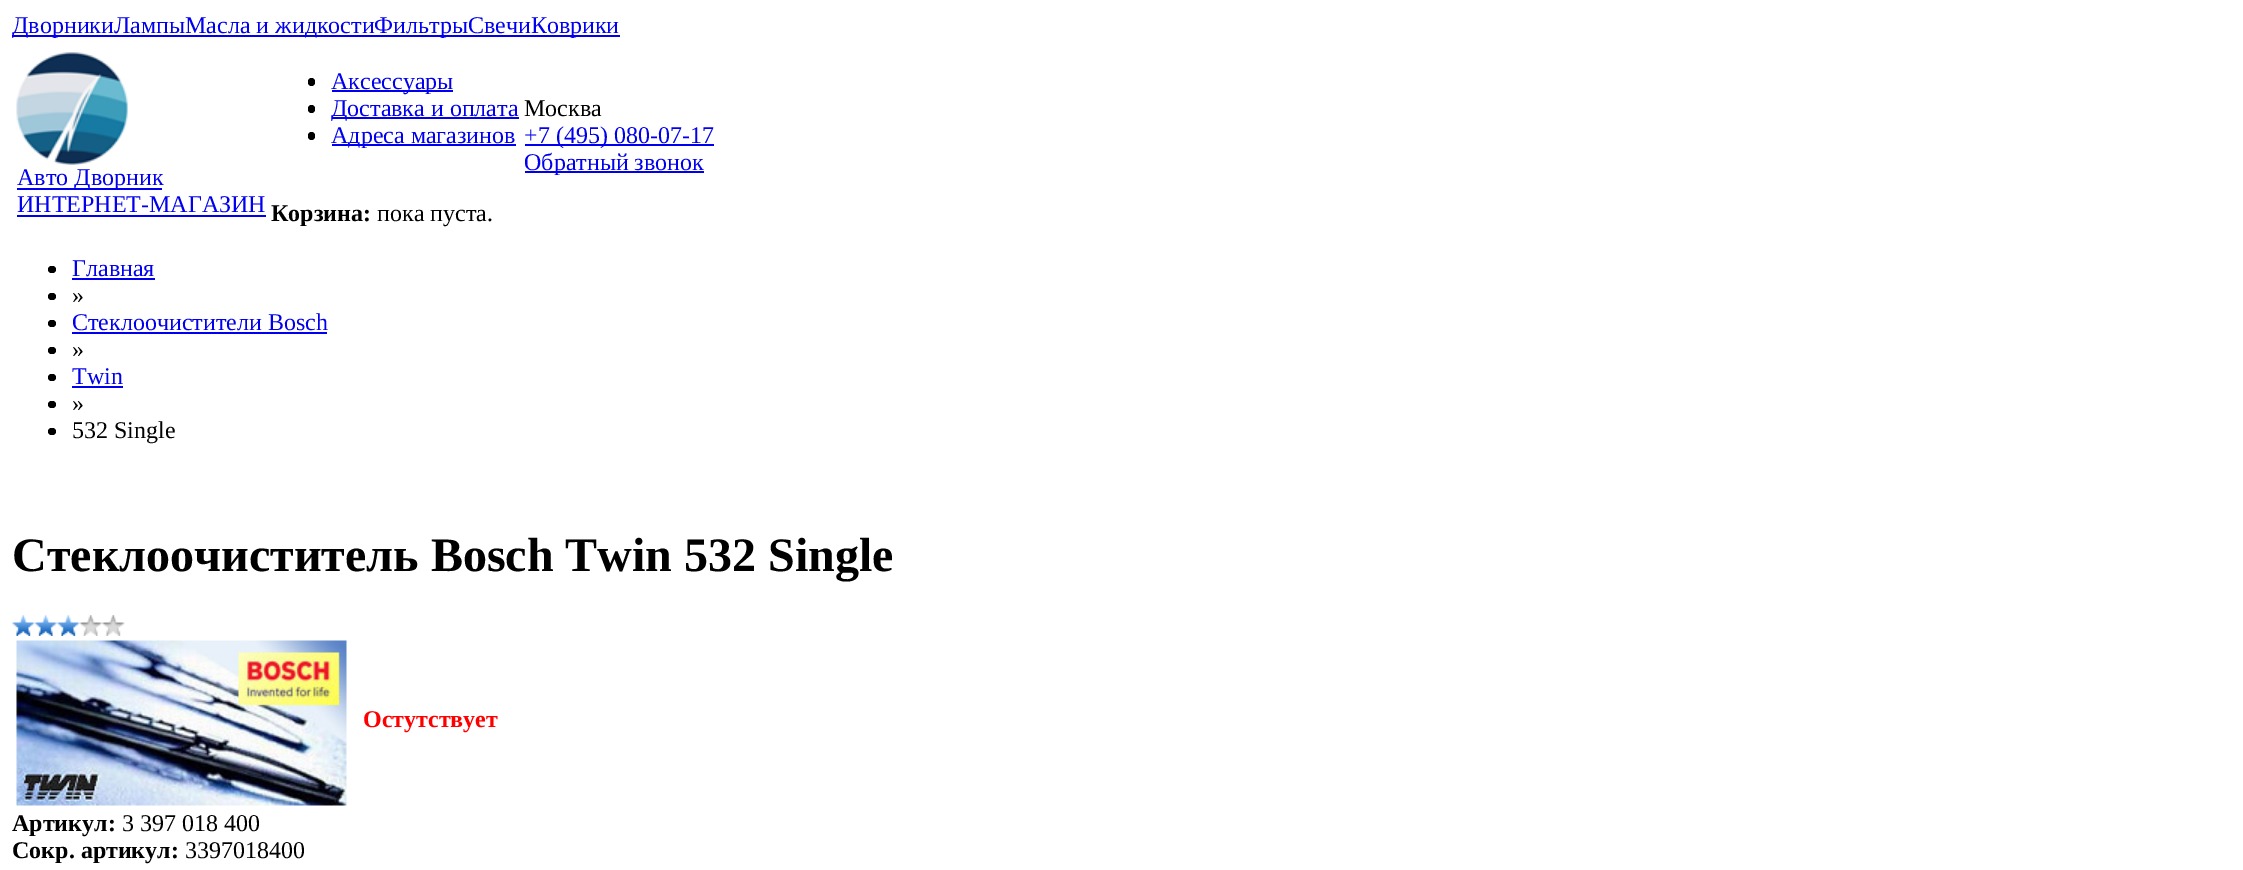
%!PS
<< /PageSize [2243 870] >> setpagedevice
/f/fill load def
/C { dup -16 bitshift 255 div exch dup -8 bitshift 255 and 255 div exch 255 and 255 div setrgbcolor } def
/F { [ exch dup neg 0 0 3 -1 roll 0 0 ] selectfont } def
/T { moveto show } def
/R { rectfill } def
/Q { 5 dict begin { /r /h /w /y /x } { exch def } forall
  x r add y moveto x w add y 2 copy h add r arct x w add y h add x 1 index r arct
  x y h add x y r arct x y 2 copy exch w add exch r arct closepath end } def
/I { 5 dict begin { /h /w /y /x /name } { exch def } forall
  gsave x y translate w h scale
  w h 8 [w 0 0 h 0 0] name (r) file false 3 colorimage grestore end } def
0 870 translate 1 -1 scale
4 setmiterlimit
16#FFFFFF C
0 0 2243 870 R
16#0000EE C
12 35 608 2 R
/LiberationSerif-Regular 24 F
(ДворникиЛампыМасла и жидкостиФильтрыСвечиКоврики) 12 33 T
16#000000 C
308 78 7 8 3.5 Q f
16#0000EE C
332 90 121 2 R
(Аксессуары) 331 89 T
16#000000 C
308 105 7 8 3.5 Q f
16#0000EE C
332 117 187 2 R
(Доставка и оплата) 331 116 T
16#000000 C
308 132 7 8 3.5 Q f
16#0000EE C
332 144 184 2 R
(Адреса магазинов) 331 143 T
/LiberationSerif-Bold 24 F
16#000000 C
(Корзина:) 271 221 T
/LiberationSerif-Regular 24 F
(пока пуста.) 377 221 T
(Москва) 524 116 T
16#0000EE C
525 144 189 2 R
(+7 \(495\) 080-07-17) 524 143 T
525 171 179 2 R
(Обратный звонок) 524 170 T
(1.rgb) 16 52 112 113 I
17 188 145 2 R
(Авто Дворник) 17 185 T
(ИНТЕРНЕТ-МАГАЗИН) 17 212 T
17 215 249 2 R
16#000000 C
48 266 8 7 3.5 Q f
16#0000EE C
(Главная) 72 276 T
72 278 83 2 R
16#000000 C
48 293 8 7 3.5 Q f
(») 72 303 T
48 320 8 7 3.5 Q f
16#0000EE C
(Стеклоочистители Bosch) 72 330 T
72 332 255 2 R
16#000000 C
48 347 8 7 3.5 Q f
(») 72 357 T
48 374 8 7 3.5 Q f
16#0000EE C
(Twin) 72 384 T
72 386 51 2 R
16#000000 C
48 401 8 7 3.5 Q f
(») 72 411 T
48 428 8 7 3.5 Q f
(532 Single) 72 438 T
/LiberationSerif-Bold 48 F
(Стеклоочиститель Bosch Twin 532 Single) 12 571 T
(2.rgb) 12 615 23 21 I
(3.rgb) 34 615 23 21 I
(2.rgb) 57 615 23 21 I
(4.rgb) 79 615 23 21 I
(5.rgb) 102 615 23 21 I
(6.rgb) 16 640 331 166 I
/LiberationSerif-Bold 24 F
16#FF0000 C
(Остутствует) 363 727 T
16#000000 C
(Артикул:) 12 831 T
/LiberationSerif-Regular 24 F
(3 397 018 400) 122 831 T
/LiberationSerif-Bold 24 F
(Сокр. артикул:) 12 858 T
/LiberationSerif-Regular 24 F
(3397018400) 185 858 T
showpage
